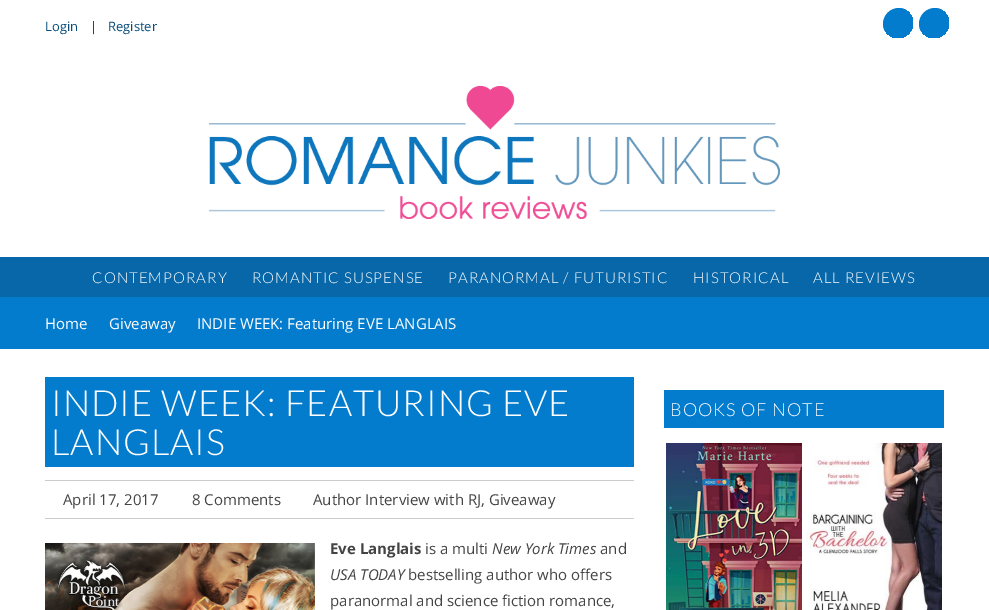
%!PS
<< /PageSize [989 610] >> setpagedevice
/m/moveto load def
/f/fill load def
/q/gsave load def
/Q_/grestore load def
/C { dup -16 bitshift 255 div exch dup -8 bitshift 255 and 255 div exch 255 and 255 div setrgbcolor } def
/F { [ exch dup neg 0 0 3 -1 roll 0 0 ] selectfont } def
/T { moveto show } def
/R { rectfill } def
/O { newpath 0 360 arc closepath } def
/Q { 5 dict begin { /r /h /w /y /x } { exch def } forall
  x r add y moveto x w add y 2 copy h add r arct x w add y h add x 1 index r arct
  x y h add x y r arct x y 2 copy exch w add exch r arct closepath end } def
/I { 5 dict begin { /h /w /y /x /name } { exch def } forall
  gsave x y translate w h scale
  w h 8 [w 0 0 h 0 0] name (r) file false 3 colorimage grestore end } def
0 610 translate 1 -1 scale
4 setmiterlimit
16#FFFFFF C
0 0 989 610 R
/OpenSans-Regular 13 F
16#074D7A C
(Login) 45 31 T
(|) 90 31 T
(Register) 108 31 T
q
883 8 30 30 15 Q clip newpath
16#047CCE C
899 24 16 O f
Q_
q
919 8 30 30 15 Q clip newpath
16#047CCE C
935 24 16 O f
Q_
(1.rgb) 209 86 571 133 I
16#0767A9 C
0 257 989 40 R
/Lato-Light 15 F
16#FFFFFF C
92 283 m 1 0 (CONTEMPORARY) ashow
252 283 m 1 0 (ROMANTIC SUSPENSE) ashow
448 283 m 1 0 (PARANORMAL / FUTURISTIC) ashow
693 283 m 1 0 (HISTORICAL) ashow
813 283 m 1 0 (ALL REVIEWS) ashow
16#047CCE C
0 297 989 52 R
/OpenSans-Regular 15 F
16#FFFFFF C
(Home) 45 329 T
(Giveaway) 109 329 T
(INDIE WEEK: Featuring EVE LANGLAIS) 197 329 T
16#047CCE C
45 377 589 90 R
/Lato-Light 36 F
16#FFFFFF C
51 416 m 1 0 (INDIE WEEK: FEATURING EVE) ashow
51 455 m 1 0 (LANGLAIS) ashow
16#CCCCCC C
45 480 589 1 R
45 518 589 1 R
/OpenSans-Regular 15 F
16#444444 C
(April 17, 2017) 63 505 T
(8 Comments) 192 505 T
(Author Interview with RJ, Giveaway) 313 505 T
(2.rgb) 45 543 270 67 I
/OpenSans-Bold 15 F
(Eve Langlais) 330 554 T
/OpenSans-Regular 15 F
(is a multi) 425 554 T
/OpenSans-Italic 15 F
(New York Times) 492 554 T
/OpenSans-Regular 15 F
(and) 600 554 T
/OpenSans-Italic 15 F
(USA TODAY) 330 580 T
/OpenSans-Regular 15 F
(bestselling author who offers) 408 580 T
(paranormal and science fiction romance,) 330 606 T
16#047CCE C
664 390 280 38 R
/Lato-Light 18 F
16#FFFFFF C
670 416 m 1 0 (BOOKS OF NOTE) ashow
(3.rgb) 666 443 136 167 I
(4.rgb) 806 443 136 167 I
showpage
